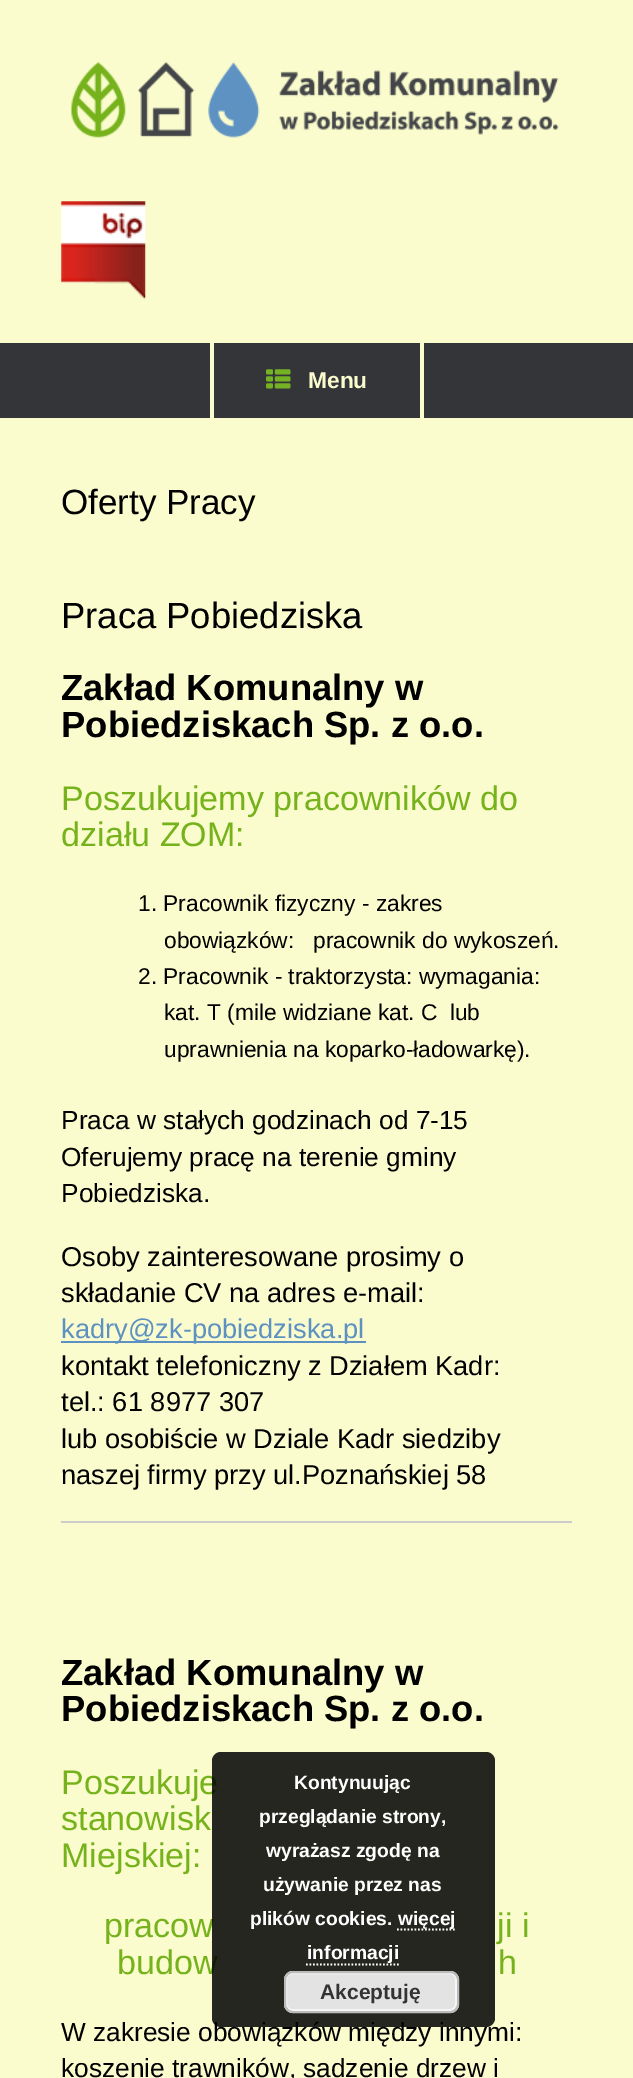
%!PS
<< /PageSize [633 2078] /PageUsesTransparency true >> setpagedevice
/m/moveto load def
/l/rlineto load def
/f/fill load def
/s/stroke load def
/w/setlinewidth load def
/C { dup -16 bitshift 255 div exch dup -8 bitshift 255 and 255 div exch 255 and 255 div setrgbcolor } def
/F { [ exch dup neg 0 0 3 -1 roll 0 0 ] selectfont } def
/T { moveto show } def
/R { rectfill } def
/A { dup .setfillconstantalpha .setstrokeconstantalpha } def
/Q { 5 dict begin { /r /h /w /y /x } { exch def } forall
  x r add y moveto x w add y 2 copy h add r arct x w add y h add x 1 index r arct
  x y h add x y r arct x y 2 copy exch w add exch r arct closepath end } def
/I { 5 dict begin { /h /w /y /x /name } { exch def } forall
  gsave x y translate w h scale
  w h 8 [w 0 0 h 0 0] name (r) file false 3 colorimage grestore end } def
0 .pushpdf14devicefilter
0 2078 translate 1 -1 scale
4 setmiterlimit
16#FAFCCD C
0 0 633 2078 R
(1.rgb) 70 61 489 77 I
(2.rgb) 61 201 85 99 I
16#343538 C
0 343 633 75 R
16#FAFCCD C
420 343 4 75 R
210 343 4 75 R
(3.rgb) 266 369 25 20 I
/LiberationSans-Bold 22.75 F
(Menu) 308 388 T
/LiberationSans-Regular 35 F
16#000000 C
(Oferty Pracy) 61 514 T
/LiberationSans-Regular 36.4 F
(Praca Pobiedziska) 61 628 T
/LiberationSans-Bold 36.4 F
(Zakład Komunalny w) 61 700 T
(Pobiedziskach Sp. z o.o.) 61 737 T
/LiberationSans-Regular 34.1 F
16#76B21C C
(Poszukujemy pracowników do) 61 810 T
(działu ZOM:) 61 846 T
/LiberationSans-Regular 22.75 F
16#000000 C
(1. Pracownik fizyczny - zakres) 138 911 T
(obowiązków:   pracownik do wykoszeń.) 164 948 T
(2. Pracownik - traktorzysta: wymagania:) 138 984 T
(kat. T \(mile widziane kat. C  lub) 164 1020 T
(uprawnienia na koparko-ładowarkę\).) 164 1057 T
/LiberationSans-Regular 26.25 F
(Praca w stałych godzinach od 7-15) 61 1129 T
(Oferujemy pracę na terenie gminy) 61 1166 T
(Pobiedziska.) 61 1202 T
/LiberationSans-Regular 27.25 F
(Osoby zainteresowane prosimy o) 61 1266 T
(składanie CV na adres e-mail:) 61 1302 T
16#5D91C2 C
61 1341 305 2 R
(kadry@zk-pobiedziska.pl) 61 1338 T
16#000000 C
(kontakt telefoniczny z Działem Kadr:) 61 1375 T
(tel.: 61 8977 307) 61 1411 T
(lub osobiście w Dziale Kadr siedziby) 61 1448 T
(naszej firmy przy ul.Poznańskiej 58) 61 1484 T
16#CCCCCC C
61 1521 511 2 R
/LiberationSans-Bold 36.4 F
16#000000 C
(Zakład Komunalny w) 61 1685 T
(Pobiedziskach Sp. z o.o.) 61 1721 T
/LiberationSans-Regular 34.1 F
16#76B21C C
(Poszukuje) 61 1794 T
(stanowisk) 61 1830 T
(Miejskiej:) 61 1867 T
(pracow) 104 1937 T
(ji i) 497 1937 T
(budow) 117 1974 T
(h) 498 1974 T
/LiberationSans-Regular 26.25 F
16#000000 C
(W zakresie obowiązków między innymi:) 61 2041 T
(koszenie trawników, sadzenie drzew i) 61 2077 T
0.85 A
212 1752 283 275 9 Q f
/LiberationSans-Bold 19.25 F
1 A
16#FFFFFF C
(Kontynuując) 294 1789 T
(przeglądanie strony,) 259 1823 T
(wyrażasz zgodę na) 266 1857 T
(używanie przez nas) 263 1891 T
(plików cookies.) 250 1925 T
1.8 w
[1.75 1.75] 0 setdash
397 1929.5 m 58 0 l s
(więcej) 398 1925 T
(informacji) 307 1959 T
306 1964.5 m 93 0 l s
16#E3E3E3 C
284 1971 175 42 9 Q f
16#F6F6F6 C
2 w
[] 0 setdash
286 1973 170 37 6 Q s
16#BBBBBB C
285 1972 173 40 8 Q s
/LiberationSans-Bold 21 F
16#333333 C
(Akceptuję) 320 1999 T
.poppdf14devicefilter showpage
